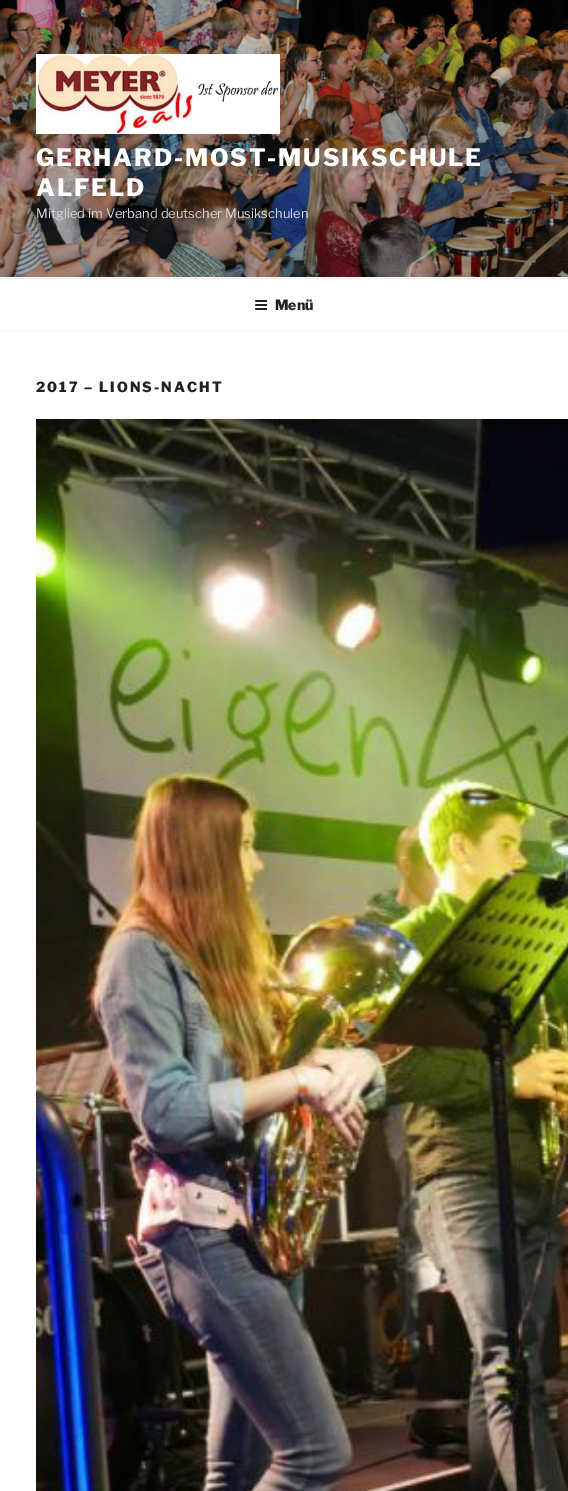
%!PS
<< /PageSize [568 1491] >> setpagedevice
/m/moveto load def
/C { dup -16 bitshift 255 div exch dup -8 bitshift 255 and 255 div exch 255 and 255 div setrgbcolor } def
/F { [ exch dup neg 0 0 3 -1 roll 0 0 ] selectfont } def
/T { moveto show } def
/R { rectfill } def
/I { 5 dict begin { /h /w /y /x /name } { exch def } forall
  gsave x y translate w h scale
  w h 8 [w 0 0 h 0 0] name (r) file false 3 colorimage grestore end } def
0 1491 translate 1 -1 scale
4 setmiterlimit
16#FFFFFF C
0 0 568 1491 R
16#FAFAFA C
0 277 568 1 R
(1.rgb) 0 0 568 277 I
(2.rgb) 36 54 244 80 I
/LibreFranklin-Thin 24 F
16#FFFFFF C
36 166 m 1.9 0 (GERHARD-MOST-MUSIKSCHULE) ashow
36 196 m 1.9 0 (ALFELD) ashow
/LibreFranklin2-Thin 13 F
16#D8D8D9 C
(Mitglied im Verband deutscher Musikschulen) 36 218 T
16#EEEEEE C
0 278 568 1 R
0 331 568 1 R
(3.rgb) 255 300 13 10 I
/LibreFranklin-Thin 14 F
16#222222 C
(Menü) 275 310 T
36 392 m 2 0 (2017 – LIONS-NACHT) ashow
(4.rgb) 36 419 532 1072 I
showpage
